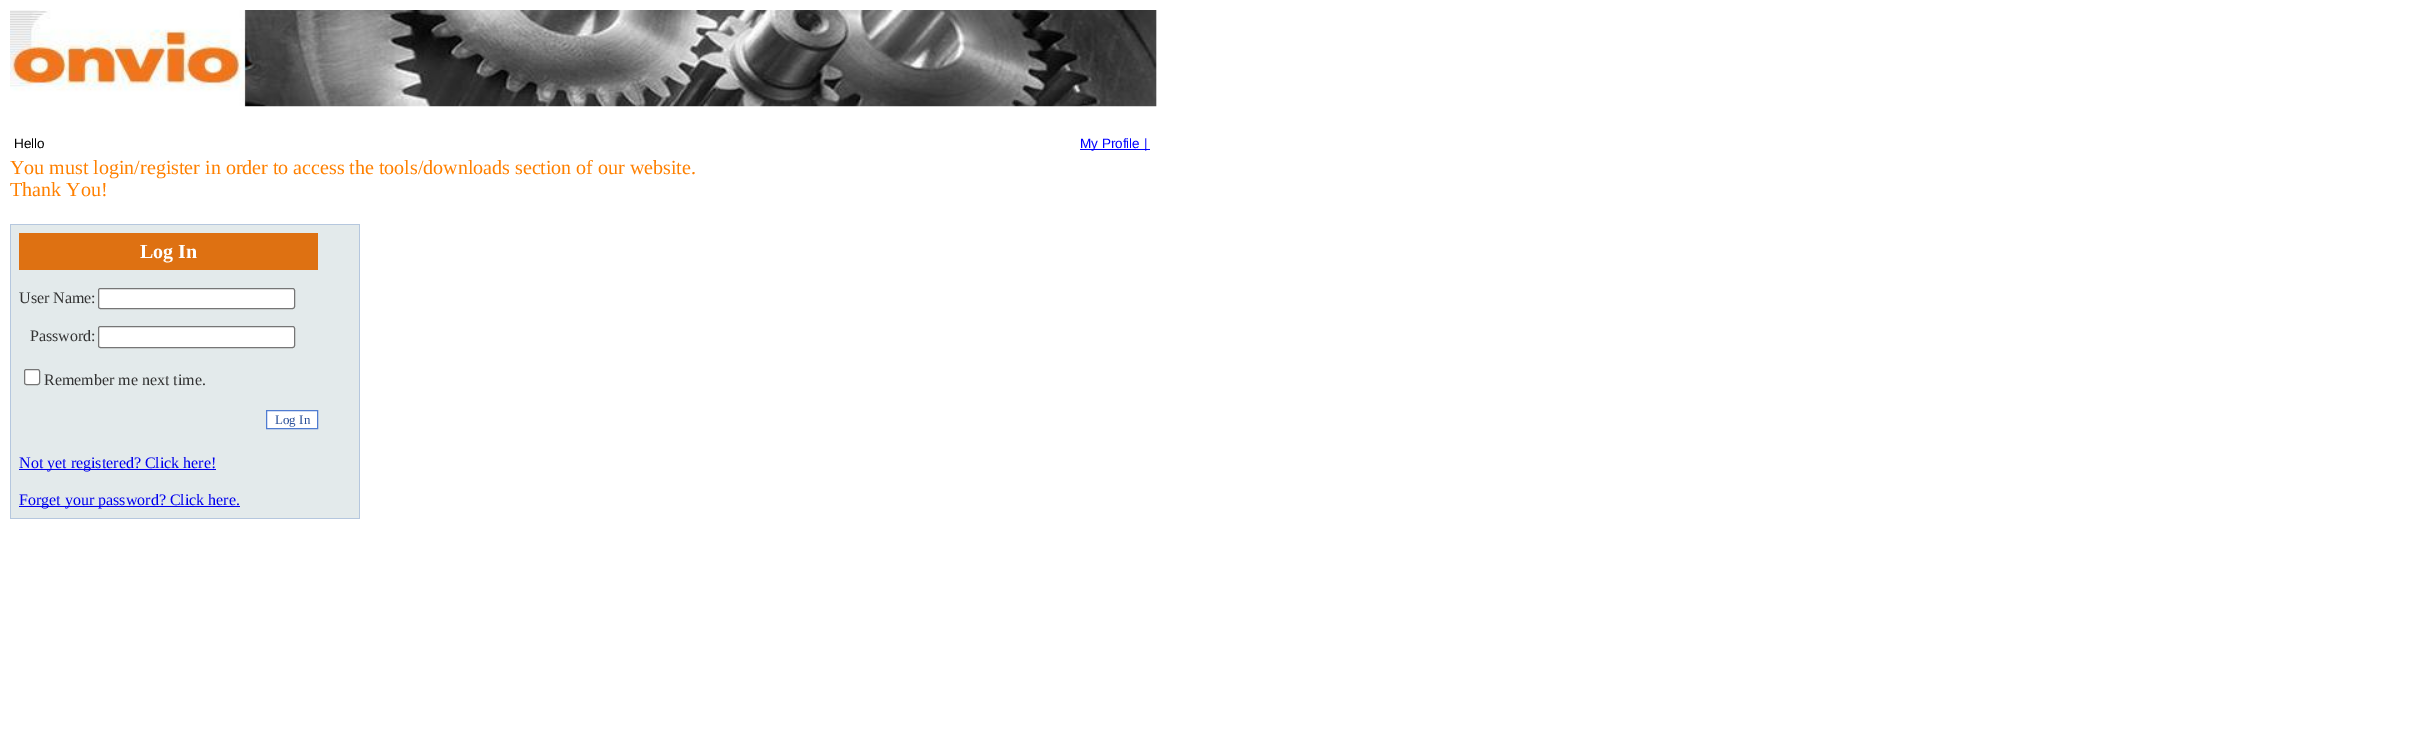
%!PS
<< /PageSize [2425 744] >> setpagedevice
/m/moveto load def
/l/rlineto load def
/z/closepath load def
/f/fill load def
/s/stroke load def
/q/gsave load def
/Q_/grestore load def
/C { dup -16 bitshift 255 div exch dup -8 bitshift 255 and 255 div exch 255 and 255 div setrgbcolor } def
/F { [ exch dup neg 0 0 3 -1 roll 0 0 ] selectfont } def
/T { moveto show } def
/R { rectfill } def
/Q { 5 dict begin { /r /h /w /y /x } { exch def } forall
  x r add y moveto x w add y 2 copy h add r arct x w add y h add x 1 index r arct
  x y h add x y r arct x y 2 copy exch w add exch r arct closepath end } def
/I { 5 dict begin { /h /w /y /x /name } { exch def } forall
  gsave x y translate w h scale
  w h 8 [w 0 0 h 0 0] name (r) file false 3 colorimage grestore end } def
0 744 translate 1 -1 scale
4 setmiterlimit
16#FFFFFF C
0 0 2425 744 R
(1.rgb) 10 10 1147 97 I
/LiberationSans-Regular 13.5 F
16#000000 C
(Hello) 14 148 T
16#0000FF C
1080 149 70 1 R
(My Profile |) 1080 148 T
/LiberationSerif-Regular 20 F
16#FF8000 C
(You must login/register in order to access the tools/downloads section of our website.) 10 174 T
(Thank You!) 10 196 T
16#E3EAEB C
11 225 348 293 R
16#B5C7DE C
10 224 350 1 R
359 224 1 295 R
10 518 350 1 R
10 224 1 295 R
16#DE7112 C
19 233 299 37 R
/LiberationSerif-Bold 20 F
16#FFFFFF C
(Log In) 140 258 T
/LiberationSerif-Regular 16 F
16#333333 C
(User Name:) 19 303 T
16#FFFFFF C
98.5 288.5 196 20 2 Q q f Q_
16#767676 C
s
16#333333 C
(Password:) 30 341 T
16#FFFFFF C
98.5 326.5 196 21 2 Q q f Q_
16#767676 C
s
16#FFFFFF C
24.5 369.5 15 15 2 Q q f Q_
16#767676 C
s
16#333333 C
(Remember me next time.) 44 385 T
16#FFFFFF C
266.5 410.5 m 51 0 l 0 18 l -51 0 l z q f Q_
16#507CD1 C
s
/LiberationSerif-Regular 13 F
16#284E98 C
(Log In) 275 424 T
16#0000EE C
19 469 197 1 R
/LiberationSerif-Regular 16 F
(Not yet registered? Click here!) 19 468 T
19 506 221 1 R
(Forget your password? Click here.) 19 505 T
showpage
